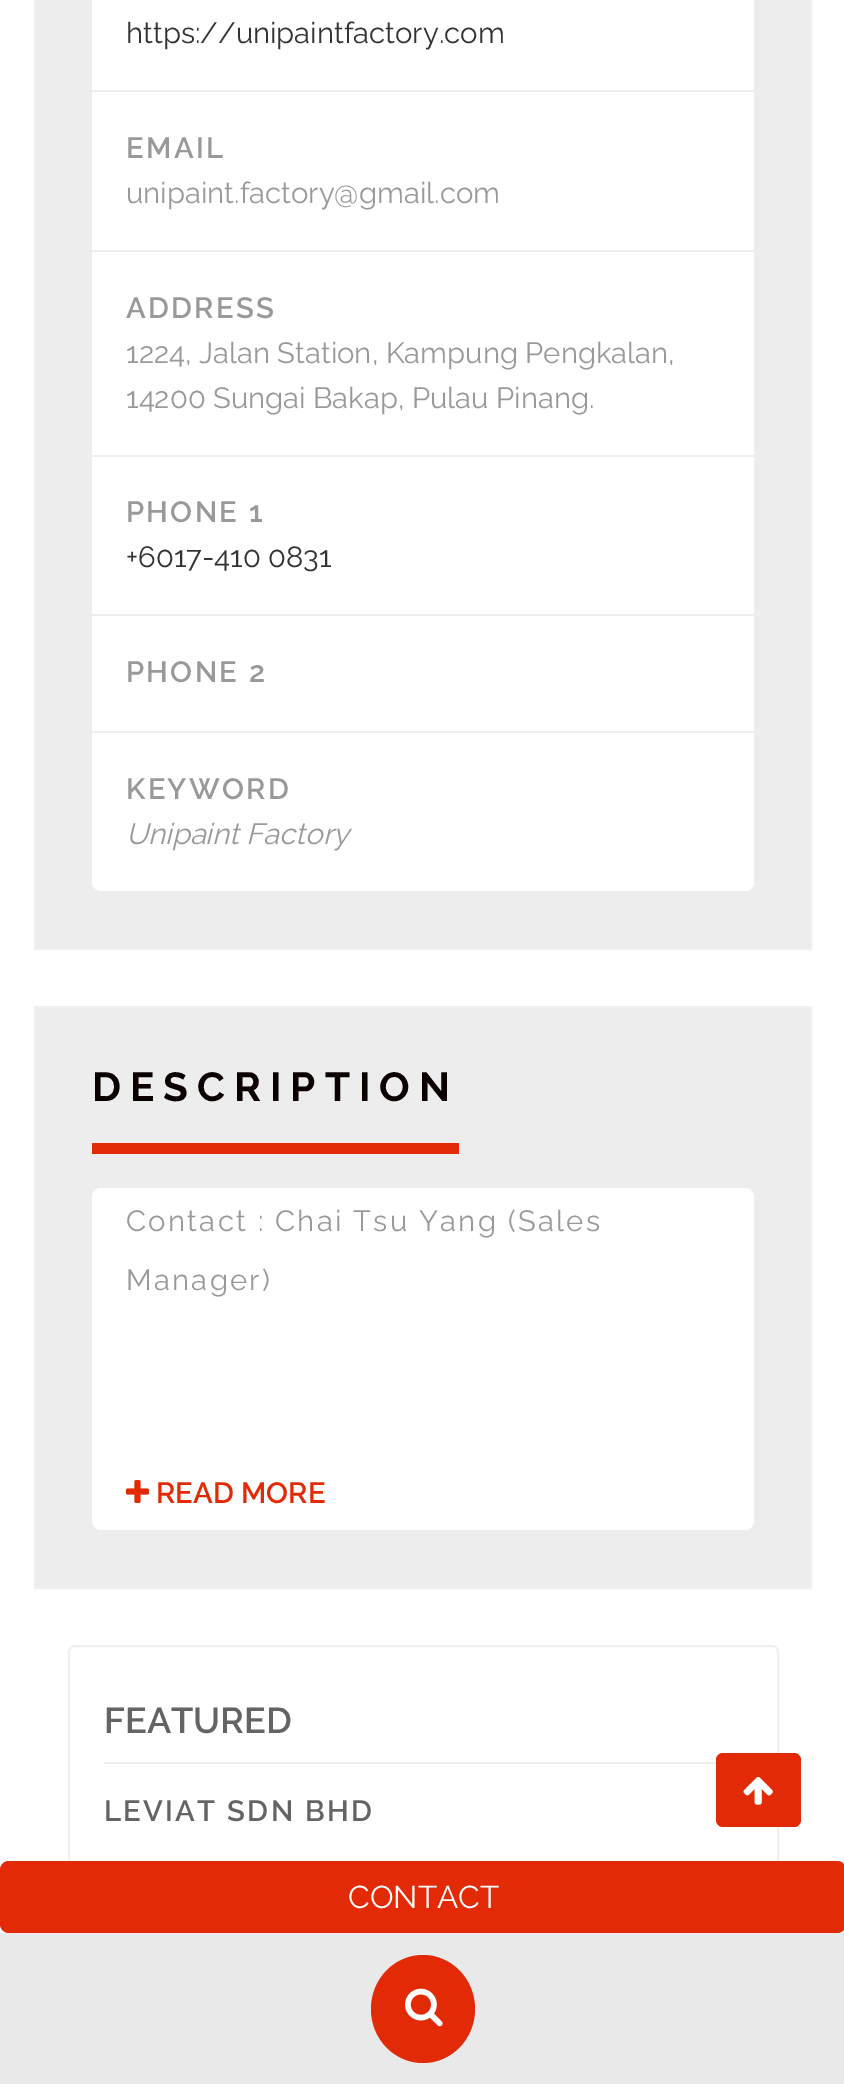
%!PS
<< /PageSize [844 2084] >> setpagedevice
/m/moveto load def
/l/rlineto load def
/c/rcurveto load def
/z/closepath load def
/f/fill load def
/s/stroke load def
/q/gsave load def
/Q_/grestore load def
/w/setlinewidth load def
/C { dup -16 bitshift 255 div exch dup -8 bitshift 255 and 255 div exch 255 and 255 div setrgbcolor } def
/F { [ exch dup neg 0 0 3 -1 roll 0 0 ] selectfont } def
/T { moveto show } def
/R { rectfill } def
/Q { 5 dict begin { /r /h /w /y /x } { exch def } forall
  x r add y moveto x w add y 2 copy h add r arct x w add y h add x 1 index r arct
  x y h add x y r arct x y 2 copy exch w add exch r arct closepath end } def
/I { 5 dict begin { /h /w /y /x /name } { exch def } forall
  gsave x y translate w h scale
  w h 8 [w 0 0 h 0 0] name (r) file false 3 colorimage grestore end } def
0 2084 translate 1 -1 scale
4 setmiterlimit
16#FFFFFF C
0 0 844 2084 R
16#EDEDED C
35 -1 m 776 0 l 0 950 l -776 0 l z q f Q_
16#F1F0F0 C
2 w
s
16#FFFFFF C
92 -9 662 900 9 Q f
16#EEEEEE C
92 90 662 2 R
/Raleway-Regular 29.25 F
16#333333 C
(https://unipaintfactory.com) 126 43 T
16#EEEEEE C
92 250 662 2 R
/Raleway-SemiBold 29.25 F
16#999999 C
126 158 m 2.25 0 (EMAIL) ashow
/Raleway-Regular 29.25 F
(unipaint.factory@gmail.com) 126 203 T
/Raleway-SemiBold 29.25 F
126 318 m 2.25 0 (ADDRESS) ashow
/Raleway-Regular 29.25 F
(1224, Jalan Station, Kampung Pengkalan,) 126 363 T
(14200 Sungai Bakap, Pulau Pinang.) 126 408 T
16#EEEEEE C
92 455 662 2 R
92 614 662 2 R
/Raleway-SemiBold 29.25 F
16#999999 C
126 522 m 2.25 0 (PHONE 1) ashow
/Raleway-Regular 29.25 F
16#333333 C
(+6017-410 0831) 126 567 T
16#EEEEEE C
92 731 662 2 R
/Raleway-SemiBold 29.25 F
16#999999 C
126 682 m 2.25 0 (PHONE 2) ashow
126 799 m 2.25 0 (KEYWORD) ashow
/Raleway-Italic 29.25 F
(Unipaint Factory) 126 844 T
16#EDEDED C
35 1007 m 776 0 l 0 581 l -776 0 l z q f Q_
16#F1F0F0 C
s
16#E22B06 C
92 1143 367 11 R
/Raleway-Bold 40.5 F
16#0A0000 C
92 1101 m 9 0 (DESCRIPTION) ashow
16#FFFFFF C
92 1188 662 342 9 Q f
/Raleway-Regular 29.25 F
16#999999 C
126 1231 m 2.25 0 (Contact : Chai Tsu Yang \(Sales) ashow
126 1290 m 2.25 0 (Manager\)) ashow
(1.rgb) 126 1480 23 23 I
/Raleway-SemiBold 29.25 F
16#E22B06 C
(READ MORE) 156 1503 T
16#F1F0F0 C
69 1646 709 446 6 Q s
16#EEEEEE C
104 1762 612 2 R
/Raleway-SemiBold 36 F
16#646464 C
(FEATURED) 104 1733 T
/Raleway-SemiBold 29.25 F
104 1821 m 2.25 0 (LEVIAT SDN BHD) ashow
16#E22B06 C
716 1753 85 74 7 Q f
(2.rgb) 743 1776 30 29 I
0 1861 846 72 9 Q f
/Raleway-Regular 31.5 F
16#FFFFFF C
(CONTACT) 348 1908 T
16#E9E9E9 C
0 1933 844 151 R
16#E22B06 C
423 1955 m 28.5 0 52 24 52 54 c 0 30 -23.5 54 -52 54 c -28.5 0 -52 -24 -52 -54 c 0 -30 23.5 -54 52 -54 c z f
(3.rgb) 405 1988 38 39 I
showpage
